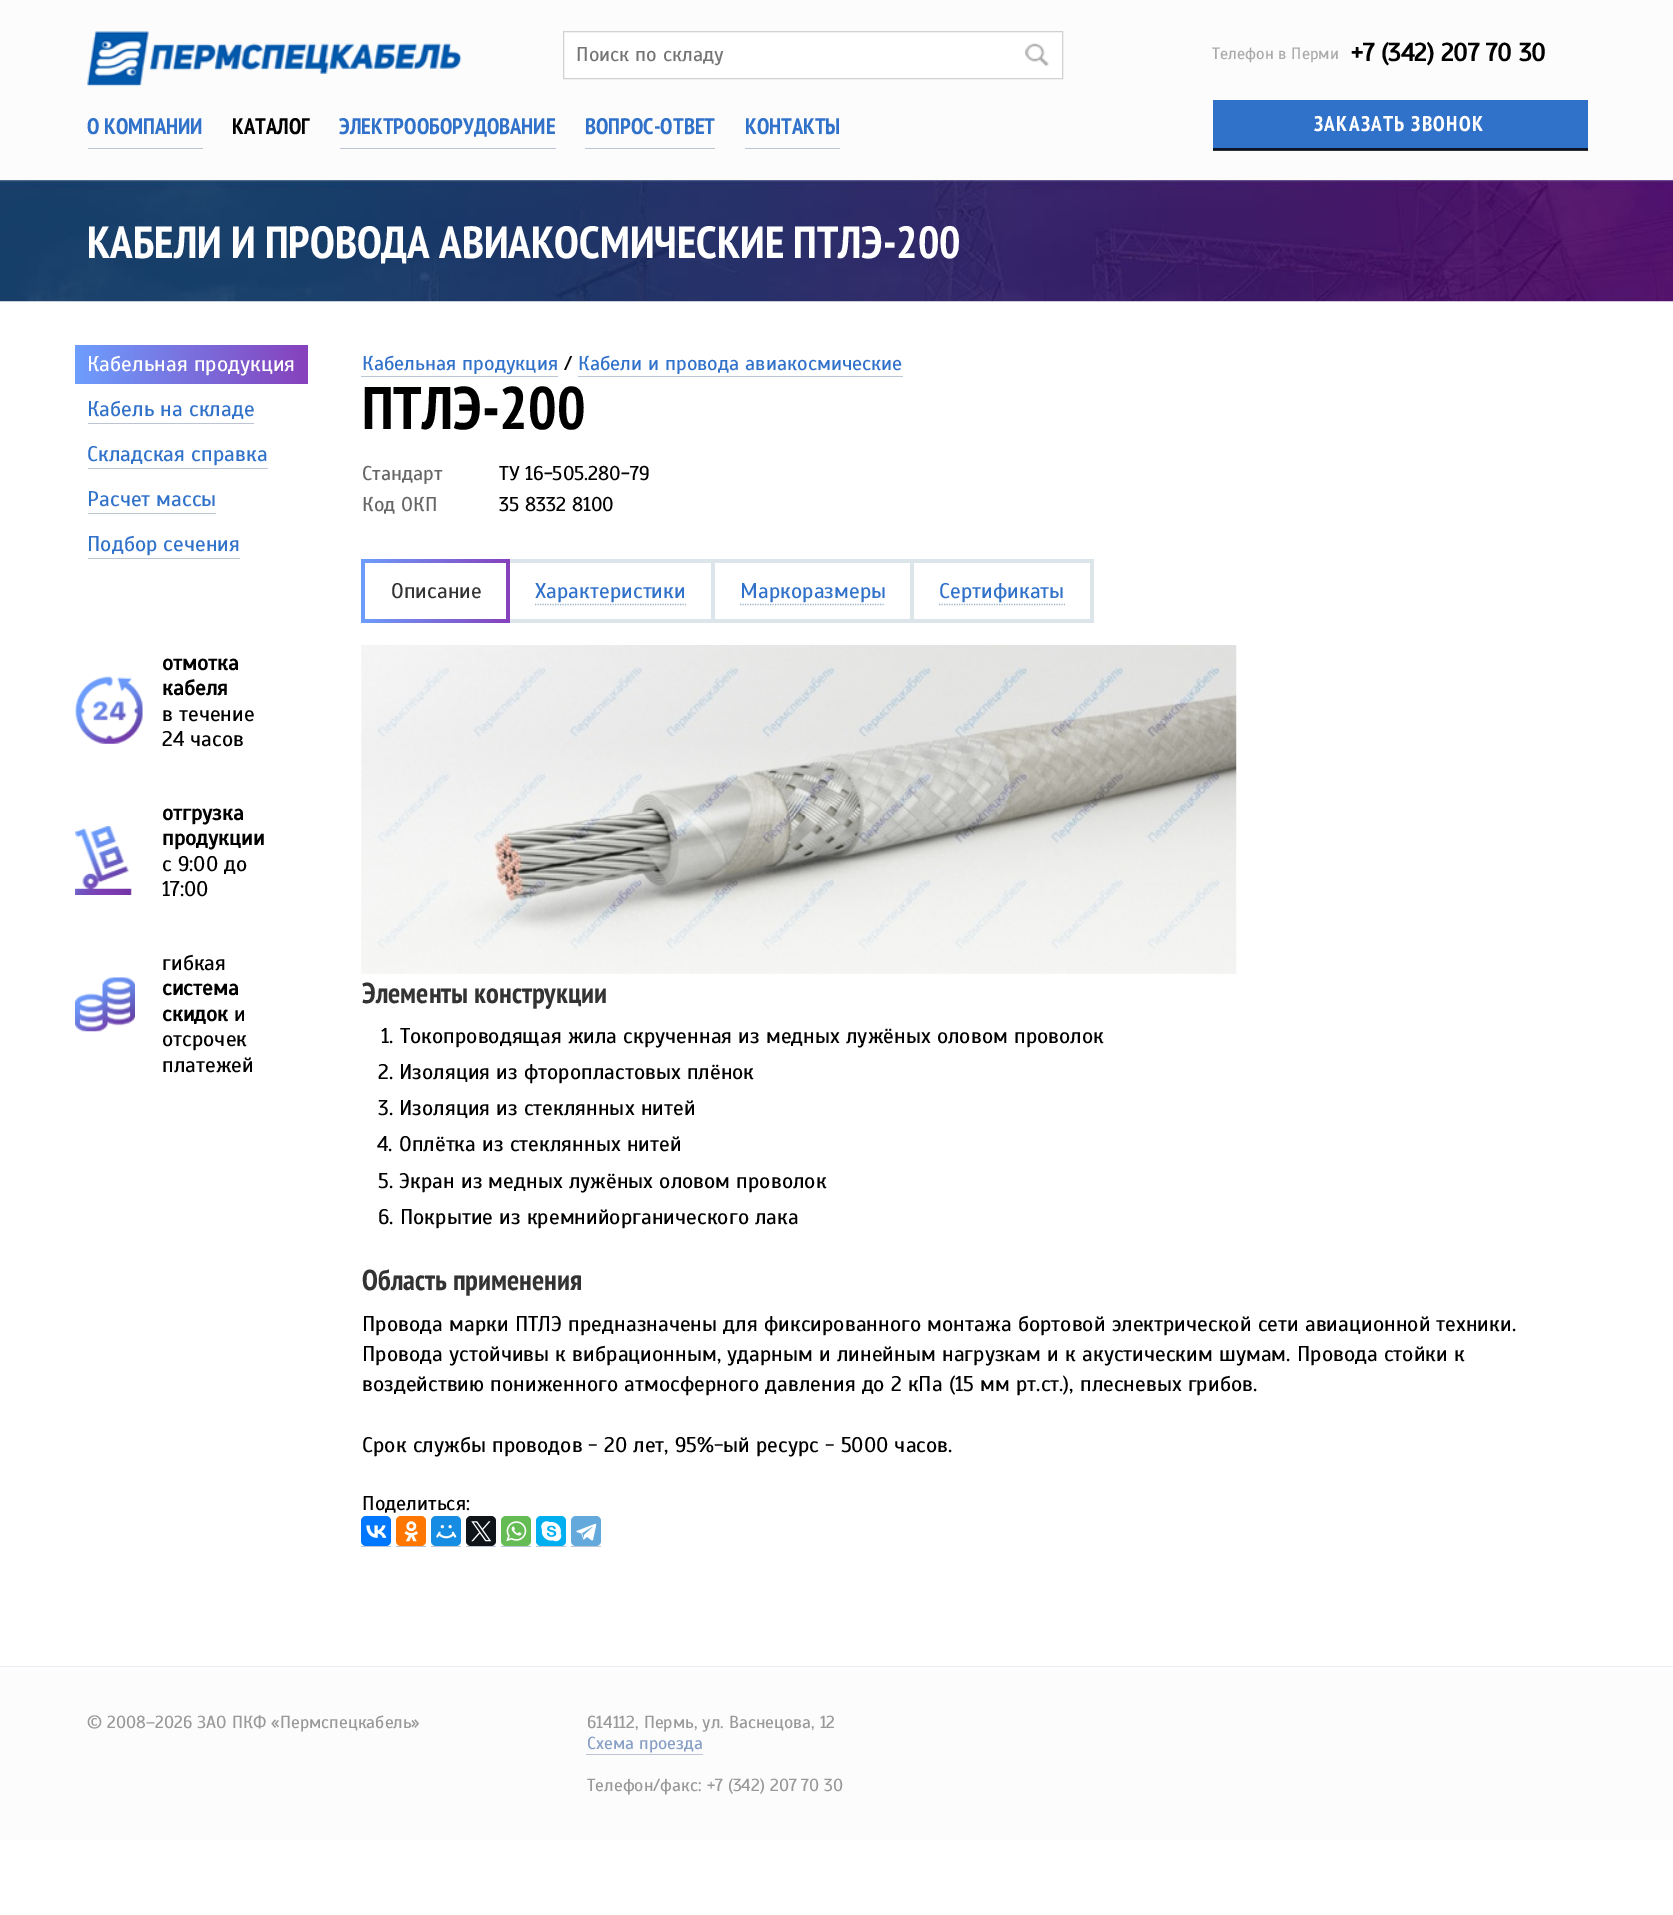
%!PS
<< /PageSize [1673 1915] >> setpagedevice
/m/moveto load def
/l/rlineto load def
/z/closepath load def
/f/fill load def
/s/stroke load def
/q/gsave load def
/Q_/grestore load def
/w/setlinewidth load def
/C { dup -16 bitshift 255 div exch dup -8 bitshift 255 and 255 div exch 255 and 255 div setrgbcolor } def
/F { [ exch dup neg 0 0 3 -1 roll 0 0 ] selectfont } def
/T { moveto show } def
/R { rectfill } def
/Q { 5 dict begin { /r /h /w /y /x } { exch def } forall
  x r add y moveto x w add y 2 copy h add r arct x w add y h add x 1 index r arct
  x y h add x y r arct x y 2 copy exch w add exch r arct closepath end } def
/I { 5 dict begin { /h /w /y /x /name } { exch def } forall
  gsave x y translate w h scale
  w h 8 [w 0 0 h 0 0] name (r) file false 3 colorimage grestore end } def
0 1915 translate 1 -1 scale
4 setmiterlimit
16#FFFFFF C
0 0 1673 1915 R
16#FCFCFD C
0 0 1673 180 R
16#323233 C
1213 150 375 1 R
(1.rgb) 87 31 375 56 I
16#FFFFFF C
563.5 31.5 m 499 0 l 0 47 l -499 0 l z q f Q_
16#D1D1D1 C
s
/Scada-Regular 20 F
16#757575 C
(Поиск по складу) 576 61 T
(2.rgb) 1025 43 24 24 I
16#BDC5D4 C
88 148 115 1 R
/PTSansNarrow-Bold 22.5 F
16#3071CA C
(О КОМПАНИИ) 87 134 T
16#000000 C
(КАТАЛОГ) 232 134 T
16#BDC5D4 C
340 148 216 1 R
16#3071CA C
(ЭЛЕКТРООБОРУДОВАНИЕ) 339 134 T
16#BDC5D4 C
585 148 130 1 R
16#3071CA C
(ВОПРОС-ОТВЕТ) 585 134 T
16#BDC5D4 C
745 148 95 1 R
16#3071CA C
(КОНТАКТЫ) 745 134 T
/Scada-Regular 16.25 F
16#AAAAAA C
(Телефон в Перми) 1212 59 T
/Scada-Bold 25 F
16#000000 C
(+7 \(342\) 207 70 30) 1351 61 T
16#3071CA C
1213 100 375 48 R
16#0A1728 C
1213 148 375 2 R
/PTSansNarrow-Bold 21.25 F
16#FFFFFF C
1314 131 m 1.25 0 (ЗАКАЗАТЬ ЗВОНОК) ashow
(3.rgb) 0 180 1673 122 I
/PTSansNarrow-Bold 45 F
(КАБЕЛИ И ПРОВОДА АВИАКОСМИЧЕСКИЕ ПТЛЭ-200) 87 258 T
q 75 345 m 233 0 l 0 39 l -233 0 l z clip newpath
<< /ShadingType 2 /ColorSpace /DeviceRGB /Coords [75 364 308 364] /Extend [true true] /Function << /FunctionType 2 /Domain [0 1] /C0 [.427 .62 .996] /C1 [.529 .255 .737] /N 1 >> >> shfill Q_
/Scada-Regular 21.25 F
(Кабельная продукция) 87 371 T
16#3071CA C
(Кабель на складе) 87 416 T
16#BDC5D4 C
88 423 166 1 R
16#3071CA C
(Складская справка) 87 461 T
16#BDC5D4 C
88 468 180 1 R
16#3071CA C
(Расчет массы) 87 506 T
16#BDC5D4 C
88 513 128 1 R
16#3071CA C
(Подбор сечения) 87 551 T
16#BDC5D4 C
88 558 152 1 R
/Scada-Bold 21.25 F
16#000000 C
(отмотка) 162 670 T
(4.rgb) 75 676 68 68 I
(кабеля) 162 695 T
/Scada-Regular 21.25 F
(в течение) 162 721 T
(24 часов) 162 746 T
/Scada-Bold 21.25 F
(отгрузка) 162 820 T
(5.rgb) 75 826 57 69 I
(продукции) 162 845 T
/Scada-Regular 21.25 F
(с 9:00 до) 162 871 T
(17:00) 162 896 T
(гибкая) 162 970 T
(6.rgb) 75 977 60 55 I
/Scada-Bold 21.25 F
(система) 162 995 T
(скидок) 162 1021 T
/Scada-Regular 21.25 F
(и) 234 1021 T
(отсрочек) 162 1046 T
(платежей) 162 1072 T
/Scada-Regular 20 F
16#3071CA C
(Кабельная продукция) 362 370 T
16#BDC5D4 C
361 376 197 1 R
16#000000 C
(/) 564 370 T
16#3071CA C
(Кабели и провода авиакосмические) 578 370 T
16#BDC5D4 C
578 376 325 1 R
/PTSansNarrow-Bold 60 F
16#000000 C
(ПТЛЭ-200) 362 429 T
/Scada-Regular 20 F
16#666666 C
(Стандарт) 362 480 T
16#000000 C
(ТУ 16-505.280-79) 499 480 T
16#666666 C
(Код ОКП) 362 511 T
16#000000 C
(35 8332 8100) 499 511 T
q 361 559 m 149 0 l 0 64 l -149 0 l z clip newpath
<< /ShadingType 2 /ColorSpace /DeviceRGB /Coords [361 591 510 591] /Extend [true true] /Function << /FunctionType 2 /Domain [0 1] /C0 [.427 .616 .992] /C1 [.529 .255 .737] /N 1 >> >> shfill Q_
16#FFFFFF C
365 563 141 56 R
/Scada-Regular 21.25 F
16#333333 C
(Описание) 391 598 T
16#DCE5EA C
510 559 584 64 R
16#FFFFFF C
510 563 201 56 R
16#3071CA C
(Характеристики) 535 598 T
16#9DB5C9 C
1.2 w
[1.25 1.25] 0 setdash
535 604.5 m 151 0 l s
16#FFFFFF C
715 563 195 56 R
16#3071CA C
(Маркоразмеры) 740 598 T
16#9DB5C9 C
740 604.5 m 145 0 l s
16#FFFFFF C
914 563 176 56 R
16#3071CA C
(Сертификаты) 939 598 T
16#9DB5C9 C
939 604.5 m 126 0 l s
(7.rgb) 361 645 876 329 I
/PTSansNarrow-Bold 28.75 F
16#333333 C
(Элементы конструкции) 362 1003 T
/Scada-Regular 21.25 F
16#000000 C
(1. Токопроводящая жила скрученная из медных лужёных оловом проволок) 381 1043 T
(2. Изоляция из фторопластовых плёнок) 378 1079 T
(3. Изоляция из стеклянных нитей) 378 1115 T
(4. Оплётка из стеклянных нитей) 377 1151 T
(5. Экран из медных лужёных оловом проволок) 378 1188 T
(6. Покрытие из кремнийорганического лака) 378 1224 T
/PTSansNarrow-Bold 28.75 F
16#333333 C
(Область применения) 362 1290 T
/Scada-Regular 21.25 F
16#000000 C
(Провода марки ПТЛЭ предназначены для фиксированного монтажа бортовой электрической сети авиационной техники.) 362 1331 T
(Провода устойчивы к вибрационным, ударным и линейным нагрузкам и к акустическим шумам. Провода стойки к) 362 1361 T
(воздействию пониженного атмосферного давления до 2 кПа \(15 мм рт.ст.\), плесневых грибов.) 362 1391 T
(Срок службы проводов - 20 лет, 95%-ый ресурс - 5000 часов.) 362 1452 T
/Scada-Regular 20 F
(Поделиться:) 362 1510 T
16#BDC5D4 C
361 1546 30 1 R
16#0077FF C
361 1516 30 30 5 Q f
(8.rgb) 366 1525 21 13 I
16#BDC5D4 C
396 1546 30 1 R
16#FF7700 C
396 1516 30 30 5 Q f
(9.rgb) 404 1521 14 21 I
16#BDC5D4 C
431 1546 30 1 R
16#168DE2 C
431 1516 30 30 5 Q f
(10.rgb) 436 1525 21 14 I
16#BDC5D4 C
466 1546 30 1 R
16#0F1419 C
466 1516 30 30 5 Q f
(11.rgb) 471 1521 21 21 I
16#BDC5D4 C
501 1546 30 1 R
16#65BC54 C
501 1516 30 30 5 Q f
(12.rgb) 506 1521 21 21 I
16#BDC5D4 C
536 1546 30 1 R
16#00AFF0 C
536 1516 30 30 5 Q f
(13.rgb) 541 1521 21 21 I
16#BDC5D4 C
571 1546 30 1 R
16#64A9DC C
571 1516 30 30 5 Q f
(14.rgb) 576 1523 21 18 I
16#FCFCFD C
0 1667 1673 173 R
16#EEECF4 C
0 1666 1673 1 R
/Scada-Regular 17.5 F
16#999999 C
(© 2008–2026 ЗАО ПКФ «Пермспецкабель») 87 1728 T
(614112, Пермь, ул. Васнецова, 12) 587 1728 T
16#879EC5 C
(Схема проезда) 587 1749 T
16#BDC5D4 C
586 1754 117 1 R
16#999999 C
(Телефон/факс: +7 \(342\) 207 70 30) 587 1791 T
showpage
